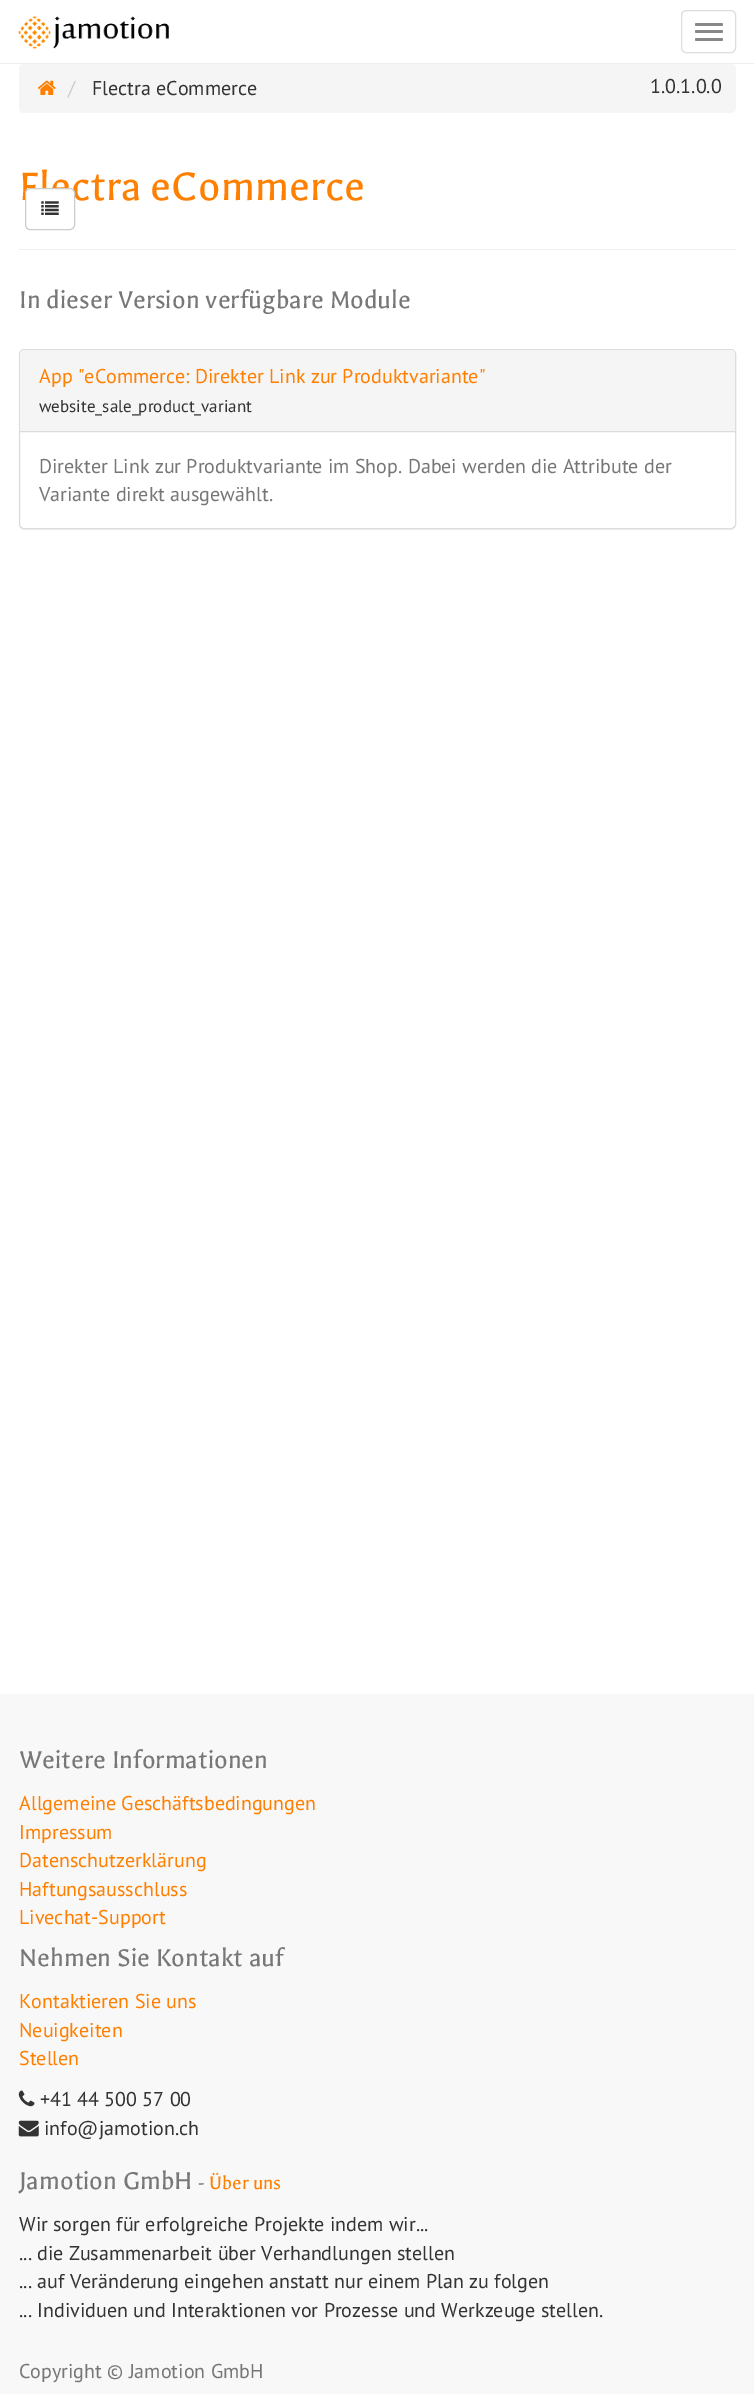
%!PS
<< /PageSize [754 2394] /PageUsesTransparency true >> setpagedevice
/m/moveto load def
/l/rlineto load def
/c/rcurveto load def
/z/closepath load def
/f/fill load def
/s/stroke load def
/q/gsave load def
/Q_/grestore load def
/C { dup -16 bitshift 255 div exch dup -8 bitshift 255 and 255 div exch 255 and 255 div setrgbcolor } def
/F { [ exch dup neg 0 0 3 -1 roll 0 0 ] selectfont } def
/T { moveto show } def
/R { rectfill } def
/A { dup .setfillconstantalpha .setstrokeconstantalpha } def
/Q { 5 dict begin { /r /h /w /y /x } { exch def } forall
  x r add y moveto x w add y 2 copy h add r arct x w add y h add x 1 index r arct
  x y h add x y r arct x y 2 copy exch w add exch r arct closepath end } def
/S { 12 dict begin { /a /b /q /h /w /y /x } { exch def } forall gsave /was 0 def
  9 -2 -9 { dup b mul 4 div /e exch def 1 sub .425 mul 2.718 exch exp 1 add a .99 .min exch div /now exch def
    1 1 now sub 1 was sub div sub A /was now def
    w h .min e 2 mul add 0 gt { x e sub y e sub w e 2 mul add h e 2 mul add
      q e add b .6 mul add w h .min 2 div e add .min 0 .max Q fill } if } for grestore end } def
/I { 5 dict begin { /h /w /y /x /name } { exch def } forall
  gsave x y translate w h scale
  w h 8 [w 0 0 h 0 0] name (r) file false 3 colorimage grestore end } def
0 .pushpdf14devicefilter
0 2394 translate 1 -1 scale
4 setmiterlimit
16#FFFFFF C
0 0 754 2394 R
16#EEEEEE C
0 63 754 1 R
(1.rgb) 18 16 151 33 I
16#DDDDDD C
681.5 10.5 54 42 4.5 Q s
16#888888 C
695 23 28 3 1.5 Q f
695 30 28 3 1.5 Q f
695 38 28 3 1.5 Q f
16#F5F5F5 C
19 64 717 49 5 Q f
(2.rgb) 37 80 19 15 I
/PTSans-Regular 20 F
16#CCCCCC C
(/) 68 95 T
16#333333 C
(Flectra eCommerce) 92 95 T
(1.0.1.0.0) 650 93 T
/Galdeano-Regular 45 F
16#FF7F00 C
(Flectra eCommerce) 19 200 T
16#EEEEEE C
19 249 717 1 R
/Galdeano-Regular 27.5 F
16#777777 C
(In dieser Version verfügbare Module) 19 308 T
16#000000 C
19 350 717 180 5 .5 .05 S
16#FFFFFF C
19.5 349.5 716 179 4.5 Q q f Q_
16#DDDDDD C
s
16#F5F5F5 C
24 350 m 707 0 l 2 0 4 2 4 4 c 0 79 l -715 0 l 0 -79 l 0 -2 2 -4 4 -4 c z f
16#DDDDDD C
20 431 715 1 R
/PTSans-Regular 20 F
16#FF7F00 C
(App "eCommerce: Direkter Link zur Produktvariante") 39 383 T
/PTSans-Regular 17 F
16#333333 C
(website_sale_product_variant) 39 412 T
/PTSans-Regular 20 F
16#777777 C
(Direkter Link zur Produktvariante im Shop. Dabei werden die Attribute der) 39 473 T
(Variante direkt ausgewählt.) 39 501 T
16#FFFFFF C
25.5 188.5 49 41 4.5 Q q f Q_
16#CCCCCC C
s
(3.rgb) 41 201 18 14 I
16#F8F8F8 C
0 1694 754 700 R
/Galdeano-Regular 27.5 F
16#777777 C
(Weitere Informationen) 19 1768 T
/PTSans-Regular 20 F
16#FF7F00 C
(Allgemeine Geschäftsbedingungen) 19 1810 T
(Impressum) 19 1839 T
(Datenschutzerklärung) 19 1867 T
(Haftungsausschluss) 19 1896 T
(Livechat-Support) 19 1924 T
/Galdeano-Regular 27.5 F
16#777777 C
(Nehmen Sie Kontakt auf) 19 1966 T
/PTSans-Regular 20 F
16#FF7F00 C
(Kontaktieren Sie uns) 19 2008 T
(Neuigkeiten) 19 2037 T
(Stellen) 19 2065 T
(4.rgb) 18 2090 17 17 I
16#333333 C
(+41 44 500 57 00) 40 2106 T
(5.rgb) 18 2120 21 17 I
(info@jamotion.ch) 44 2135 T
/Galdeano-Regular 27.5 F
16#777777 C
(Jamotion GmbH) 19 2189 T
/Galdeano-Regular 20.5 F
(-) 198 2189 T
16#FF7F00 C
(Über uns) 209 2189 T
/PTSans-Regular 20 F
16#333333 C
(Wir sorgen für erfolgreiche Projekte indem wir...) 19 2231 T
(... die Zusammenarbeit über Verhandlungen stellen) 19 2260 T
(... auf Veränderung eingehen anstatt nur einem Plan zu folgen) 19 2288 T
(... Individuen und Interaktionen vor Prozesse und Werkzeuge stellen.) 19 2317 T
16#777777 C
(Copyright © Jamotion GmbH) 19 2378 T
.poppdf14devicefilter showpage
